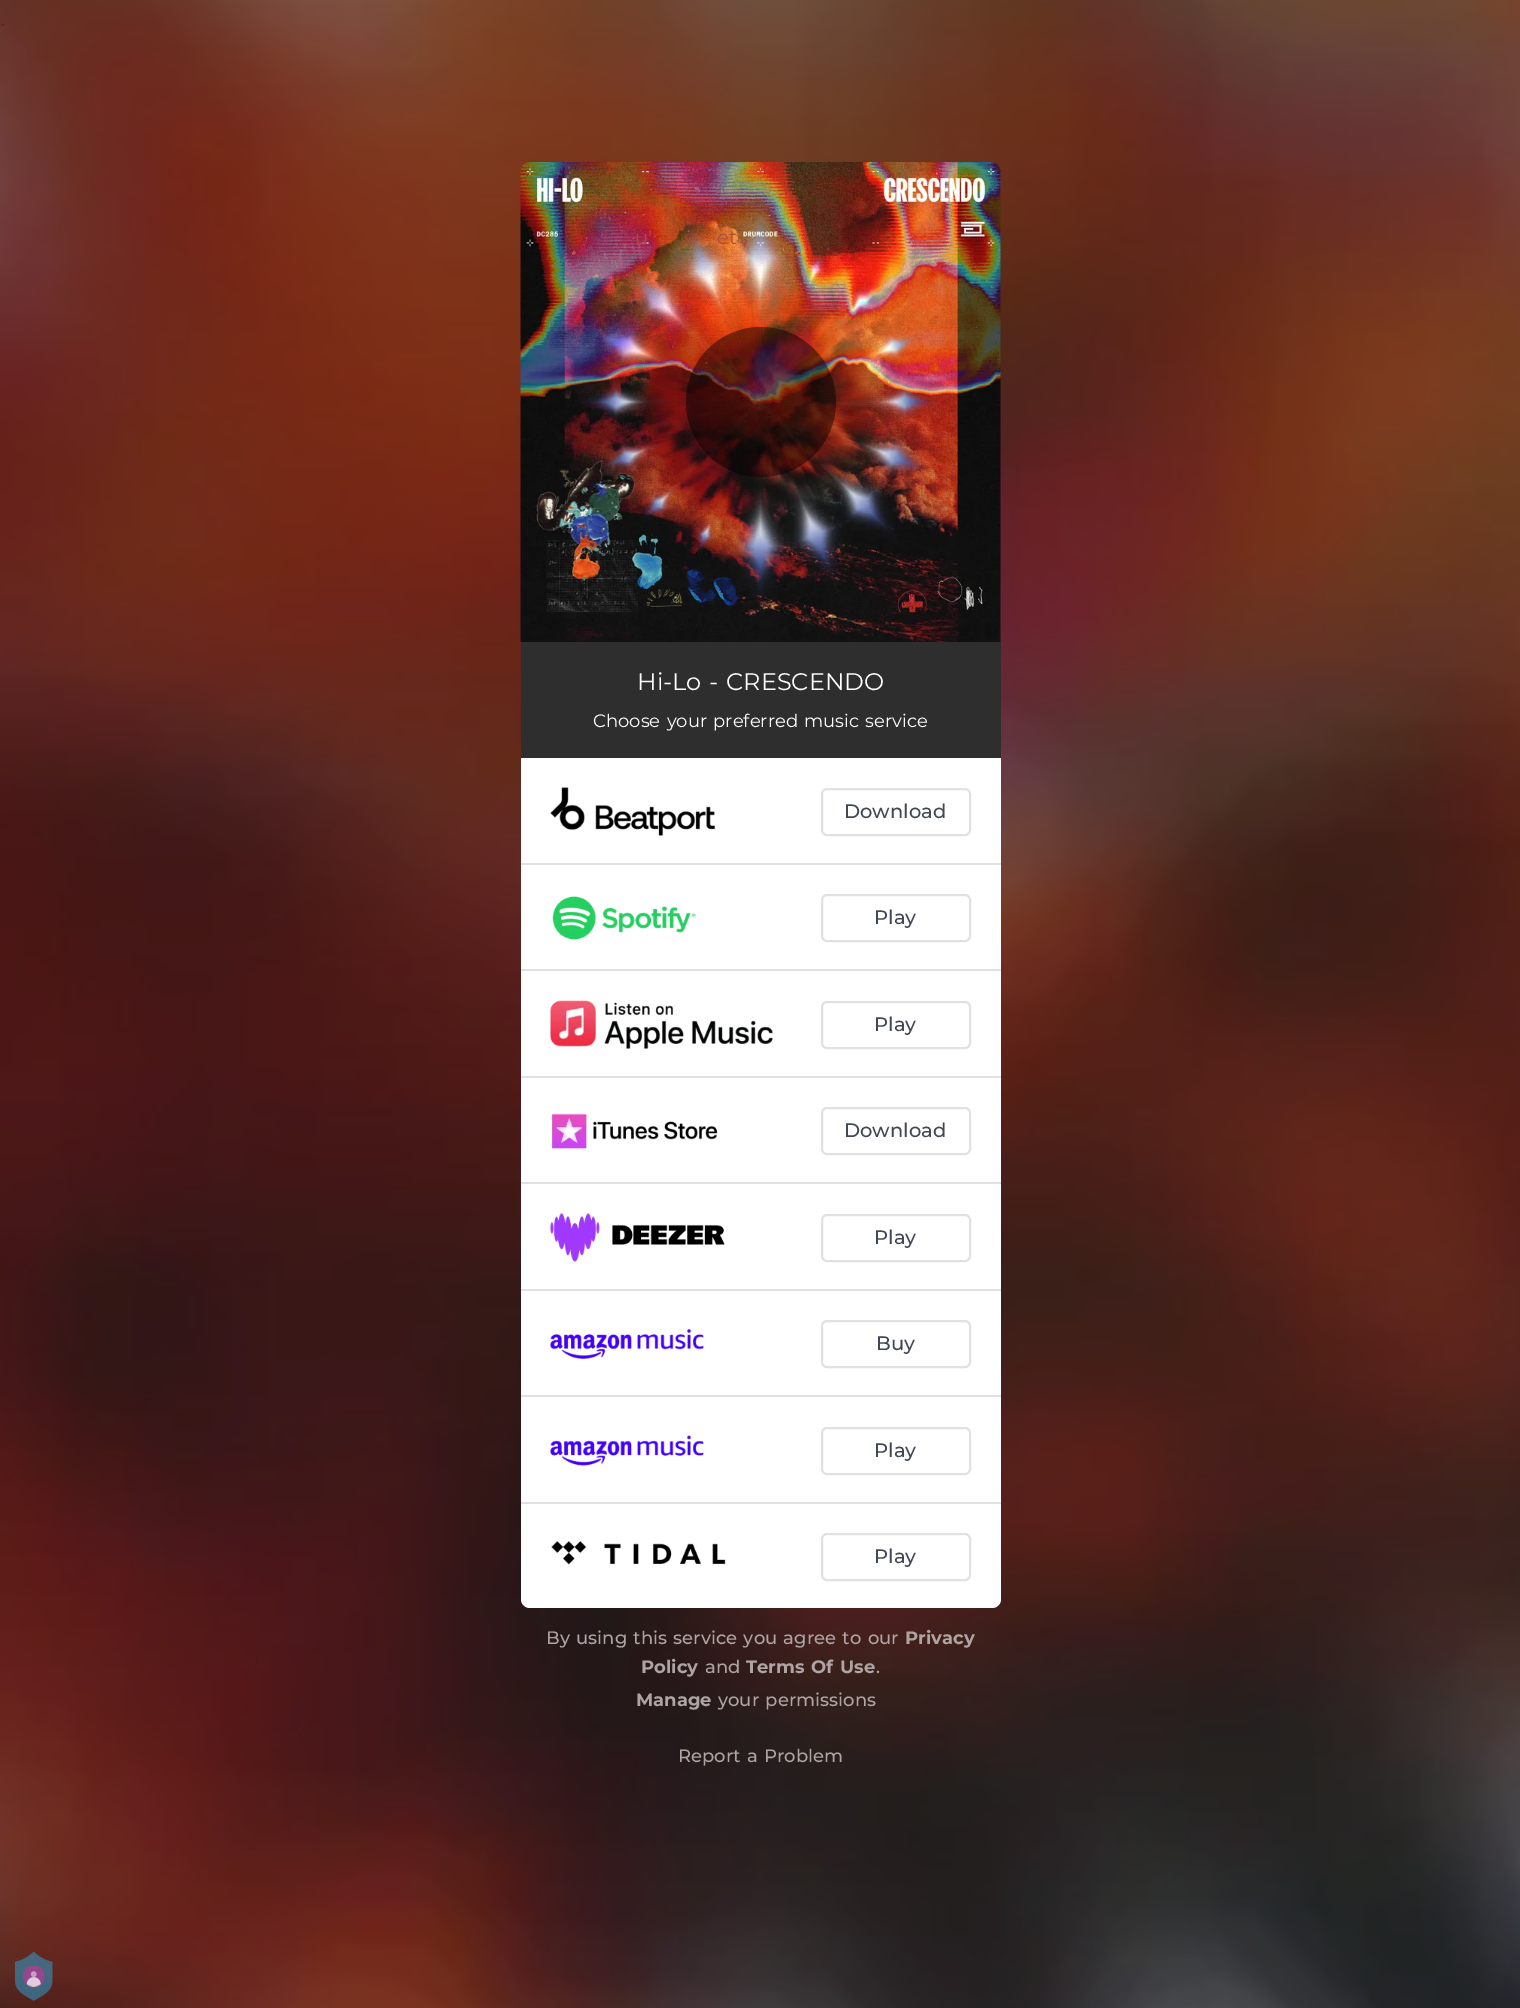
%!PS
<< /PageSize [1520 2008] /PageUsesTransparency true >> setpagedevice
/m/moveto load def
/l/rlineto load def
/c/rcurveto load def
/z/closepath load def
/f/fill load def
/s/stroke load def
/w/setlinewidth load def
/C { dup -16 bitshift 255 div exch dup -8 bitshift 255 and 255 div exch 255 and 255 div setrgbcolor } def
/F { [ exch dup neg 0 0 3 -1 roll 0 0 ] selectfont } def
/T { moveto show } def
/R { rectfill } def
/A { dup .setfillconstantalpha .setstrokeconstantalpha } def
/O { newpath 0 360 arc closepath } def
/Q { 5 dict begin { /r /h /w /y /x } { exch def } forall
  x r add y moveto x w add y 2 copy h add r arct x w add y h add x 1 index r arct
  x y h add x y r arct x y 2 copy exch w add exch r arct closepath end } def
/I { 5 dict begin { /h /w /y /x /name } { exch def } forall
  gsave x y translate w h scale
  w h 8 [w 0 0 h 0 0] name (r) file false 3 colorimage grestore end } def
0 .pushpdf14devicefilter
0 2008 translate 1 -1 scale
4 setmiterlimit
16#FFFFFF C
0 0 1520 2008 R
(1.rgb) 0 0 1520 2008 I
(2.rgb) 520 162 481 480 I
0.45 A
16#000000 C
761 402 75 O f
/Montserrat-Regular 19.5 F
1 A
16#AF4A37 C
635 244 m 1.5 0 32 (u') widthshow
717 244 m 1.5 0 32 (et) widthshow
16#2E2E2E C
521 642 480 116 R
/Montserrat-Regular 24 F
16#FFFFFF C
637 690 m 1.5 0 32 (Hi-Lo - CRESCENDO) widthshow
/Montserrat-Regular 18 F
593 727 m 1.5 0 32 (Choose your preferred music service) widthshow
521 758 m 480 0 l 0 841 l 0 5 -4 9 -9 9 c -462 0 l -5 0 -9 -4 -9 -9 c z f
16#E1E1E4 C
521 863 480 2 R
(3.rgb) 550 787 165 49 I
2 w
822 789 148 46 5 Q s
/Montserrat-Medium 19.5 F
16#414754 C
(Download) 844 818 T
16#E1E1E4 C
521 969 480 2 R
(4.rgb) 552 896 144 44 I
822 895 148 46 5 Q s
16#414754 C
(Play) 874 924 T
16#E1E1E4 C
521 1076 480 2 R
(5.rgb) 550 1000 223 49 I
822 1002 148 46 5 Q s
16#414754 C
(Play) 874 1031 T
16#E1E1E4 C
521 1182 480 2 R
(6.rgb) 552 1113 166 36 I
822 1108 148 46 5 Q s
16#414754 C
(Download) 844 1137 T
16#E1E1E4 C
521 1289 480 2 R
(7.rgb) 550 1213 175 49 I
822 1215 148 46 5 Q s
16#414754 C
(Play) 874 1244 T
16#E1E1E4 C
521 1395 480 2 R
(8.rgb) 550 1329 154 30 I
822 1321 148 46 5 Q s
16#414754 C
(Buy) 876 1350 T
16#E1E1E4 C
521 1502 480 2 R
(9.rgb) 550 1435 154 31 I
822 1428 148 46 5 Q s
16#414754 C
(Play) 874 1457 T
(10.rgb) 551 1541 175 24 I
16#E1E1E4 C
822 1534 148 46 5 Q s
16#414754 C
(Play) 874 1563 T
/Montserrat-Medium 18 F
16#ADA4A3 C
546 1644 m 1.5 0 32 (By using this service you agree to our) widthshow
/Montserrat-Bold 18 F
(Privacy) 905 1644 T
(Policy) 641 1673 T
/Montserrat-Medium 18 F
(and) 705 1673 T
/Montserrat-Bold 18 F
746 1673 m 1.5 0 32 (Terms Of Use) widthshow
/Montserrat-Medium 18 F
(.) 876 1673 T
/Montserrat-Bold 18 F
(Manage) 636 1706 T
/Montserrat-Medium 18 F
718 1706 m 1.5 0 32 (your permissions) widthshow
678 1762 m 1.5 0 32 (Report a Problem) widthshow
(11.rgb) 15 1952 38 49 I
.poppdf14devicefilter showpage
